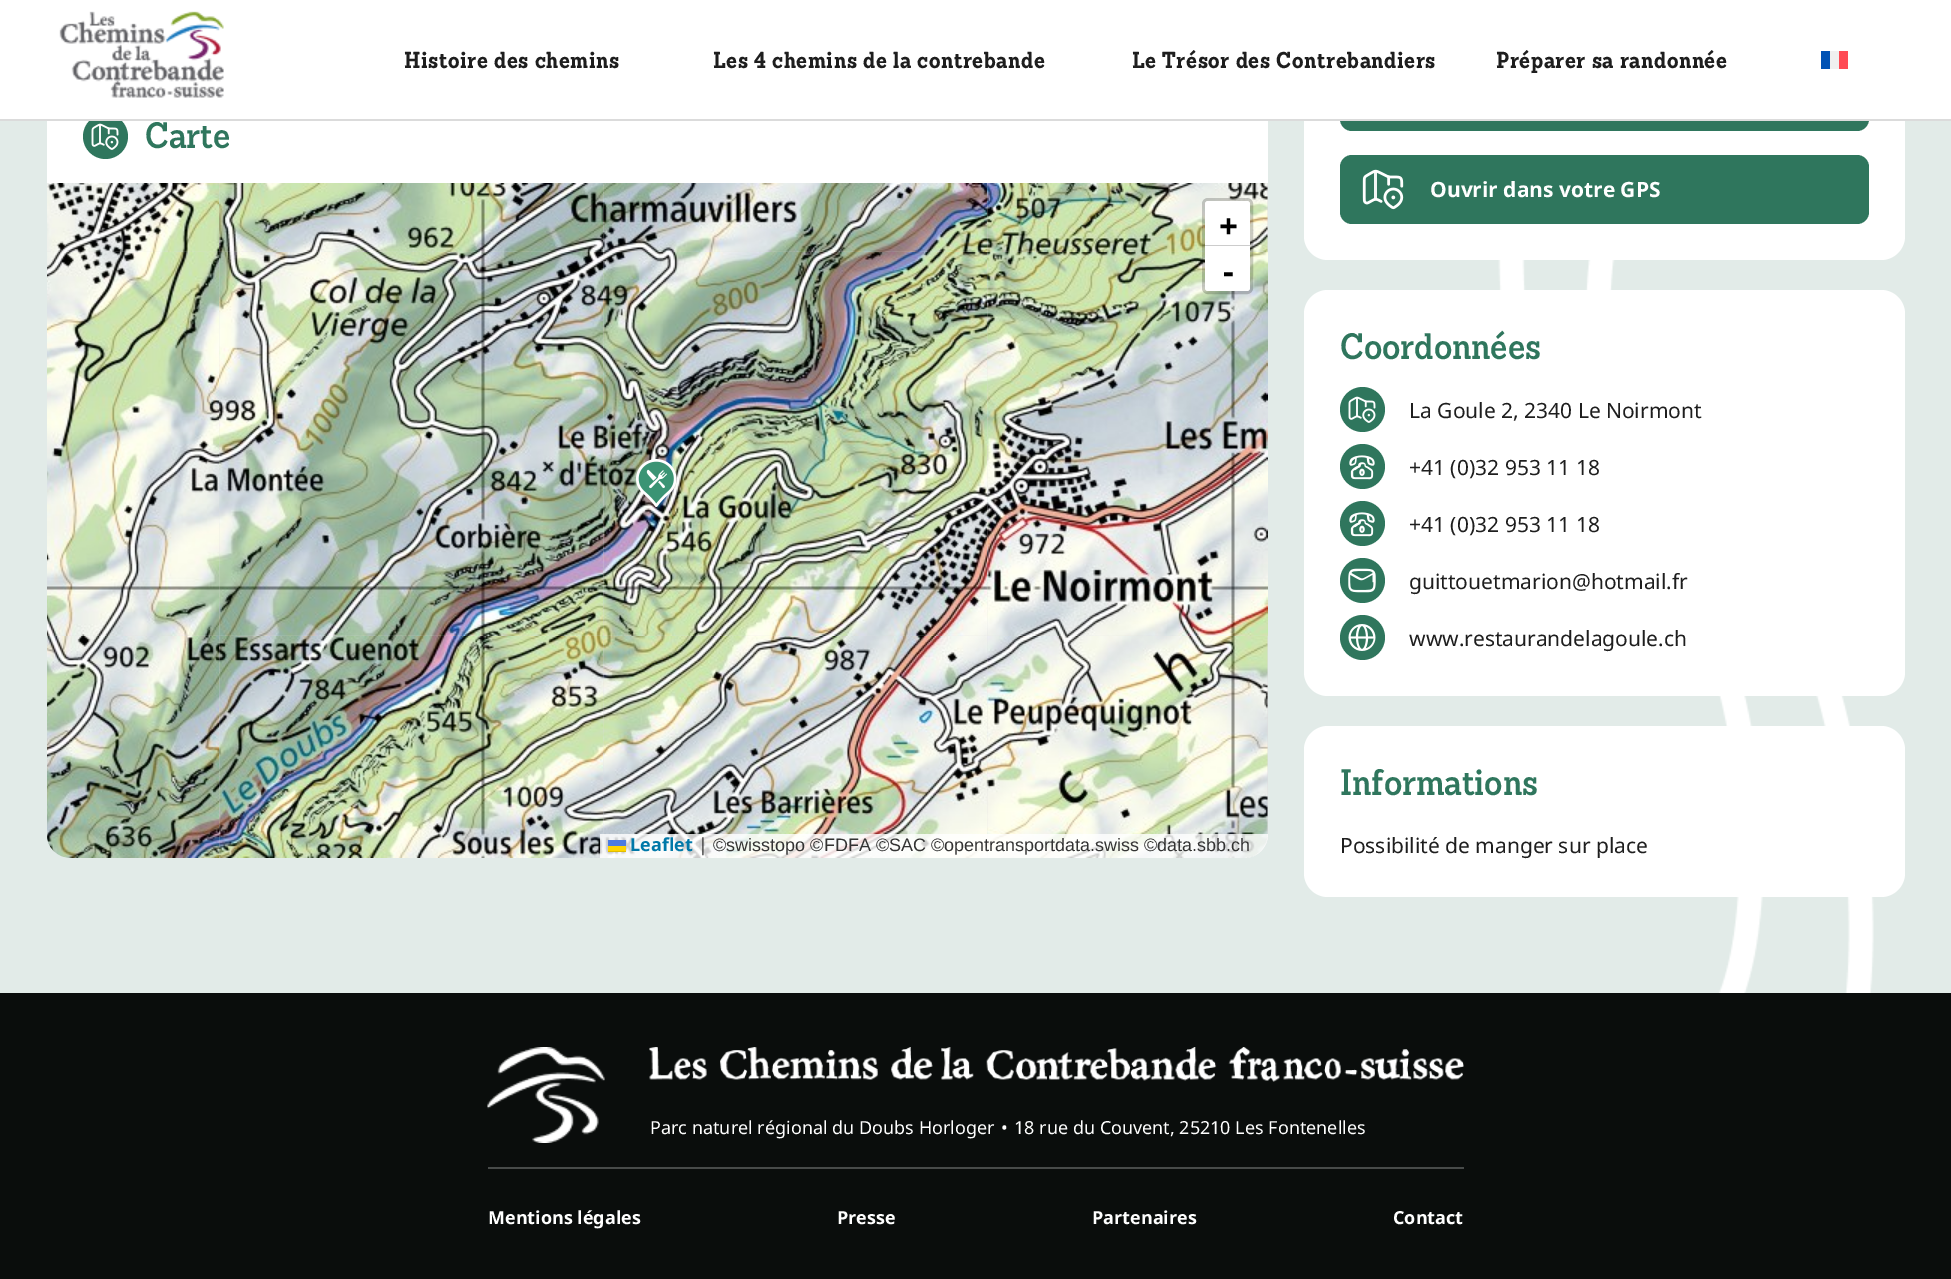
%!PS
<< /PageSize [1951 1279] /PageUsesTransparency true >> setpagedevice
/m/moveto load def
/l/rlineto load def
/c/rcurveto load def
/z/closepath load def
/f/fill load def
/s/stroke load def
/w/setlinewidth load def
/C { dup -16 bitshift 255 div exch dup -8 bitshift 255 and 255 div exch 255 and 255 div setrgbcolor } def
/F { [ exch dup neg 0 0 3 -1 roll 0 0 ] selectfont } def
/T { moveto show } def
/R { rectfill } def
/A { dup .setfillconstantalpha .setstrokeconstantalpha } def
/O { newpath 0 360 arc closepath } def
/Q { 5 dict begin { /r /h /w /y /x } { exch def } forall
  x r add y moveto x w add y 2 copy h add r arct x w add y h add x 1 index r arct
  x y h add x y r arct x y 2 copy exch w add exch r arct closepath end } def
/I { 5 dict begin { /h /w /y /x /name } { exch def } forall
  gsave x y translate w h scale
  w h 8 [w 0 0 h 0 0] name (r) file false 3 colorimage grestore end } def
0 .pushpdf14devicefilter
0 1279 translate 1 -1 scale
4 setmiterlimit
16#0A0D0C C
0 0 1951 1279 R
16#E2EBE8 C
0 121 1951 872 R
16#FFFFFF C
47 90 1221 768 24 Q f
16#2F765D C
105.5 136.5 22.5 O f
16#FFFFFF C
1304 -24 601 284 24 Q f
16#2F765D C
1340 62 529 69 12 Q f
16#FFFFFF C
0 0 1951 119 R
16#DBDBDB C
0 119 1951 2 R
(1.rgb) 59 11 165 87 I
/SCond-Bold 22.5 F
16#1E1E1E C
404 68 m .6 0 (Histoire des chemins) ashow
713 68 m .6 0 (Les 4 chemins de la contrebande) ashow
1132 68 m .6 0 (Le Trésor des Contrebandiers) ashow
1496 68 m .6 0 (Préparer sa randonnée) ashow
16#0052B4 C
1821 51 9 18 R
16#F0F0F0 C
1830 51 9 18 R
16#FF4B55 C
1839 51 9 18 R
(2.rgb) 1498 260 376 733 I
(3.rgb) 91 123 28 27 I
/SCond-SemiBold 36 F
16#2F765D C
(Carte) 145 148 T
16#DDDDDD C
47 183 m 1221 0 l 0 651 l 0 13.5 -10.5 24 -24 24 c -1173 0 l -13.5 0 -24 -10.5 -24 -24 c z f
(9.rgb) 218 252 385 385 I
(10.rgb) 602 252 385 385 I
(5.rgb) 218 183 385 70 I
(8.rgb) 47 252 172 384 I
(4.rgb) 47 183 172 70 I
(6.rgb) 602 183 385 70 I
(13.rgb) 219 636 384 222 I
(14.rgb) 602 636 385 222 I
(11.rgb) 986 252 282 385 I
(7.rgb) 986 183 282 70 I
(12.rgb) 47 636 172 222 I
(15.rgb) 986 636 282 222 I
(16.rgb) 636 459 41 48 I
0.2 A
16#000000 C
3 w
1203.5 199.5 48 93 4.5 Q s
1 A
16#FFFFFF C
1208 201 m 39 0 l 1.5 0 3 1.5 3 3 c 0 42 l -45 0 l 0 -42 l 0 -1.5 1.5 -3 3 -3 c z f
16#CCCCCC C
1205 245 45 1 R
/NotoSans-Bold 33 F
16#000000 C
(+) 1219 238 T
16#FFFFFF C
1205 246 m 45 0 l 0 42 l 0 1.5 -1.5 3 -3 3 c -39 0 l -1.5 0 -3 -1.5 -3 -3 c z f
16#000000 C
(−) 1223 283 T
0.8 A
16#FFFFFF C
600 834 m 668 0 l 0 13.5 -10.5 24 -24 24 c -644 0 l z f
/NotoSans-Bold 18 F
1 A
16#0078A8 C
(Leaflet) 630 851 T
16#4C7BE1 C
608 840 18 6 R
16#FFD500 C
608 846 18 5 R
16#E0BC00 C
608 851 18 1 R
/NotoSans-Regular 18 F
16#333333 C
(|) 698 851 T
/LiberationSans-Regular 18 F
(©swisstopo ©FDFA ©SAC ©opentransportdata.swiss ©data.sbb.ch) 713 851 T
16#2F765D C
1340 155 529 69 12 Q f
(17.rgb) 1362 169 42 41 I
/NotoSans-Bold 21 F
16#FFFFFF C
(Ouvrir dans votre GPS) 1430 197 T
1304 290 601 406 24 Q f
/SCond-SemiBold 36 F
16#2F765D C
(Coordonnées) 1340 359 T
1362.5 409.5 22.5 O f
(3.rgb) 1348 396 28 27 I
/NotoSans-Regular 21 F
16#1E1E1E C
(La Goule 2, 2340 Le Noirmont) 1409 418 T
16#2F765D C
1362.5 466.5 22.5 O f
(18.rgb) 1349 455 26 25 I
16#1E1E1E C
(+41 \(0\)32 953 11 18) 1409 475 T
16#2F765D C
1362.5 523.5 22.5 O f
(18.rgb) 1349 512 26 25 I
16#1E1E1E C
(+41 \(0\)32 953 11 18) 1409 532 T
16#2F765D C
1362.5 580.5 22.5 O f
(19.rgb) 1348 568 28 25 I
16#1E1E1E C
(guittouetmarion@hotmail.fr) 1409 589 T
16#2F765D C
1362.5 637.5 22.5 O f
(20.rgb) 1348 624 28 27 I
16#1E1E1E C
(www.restaurandelagoule.ch) 1409 646 T
16#FFFFFF C
1304 726 601 171 24 Q f
/SCond-SemiBold 36 F
16#2F765D C
(Informations) 1340 795 T
/NotoSans-Regular 21 F
16#1E1E1E C
(Possibilité de manger sur place) 1340 853 T
(21.rgb) 487 1047 118 96 I
(22.rgb) 649 1047 815 35 I
/NotoSans-Regular 18 F
16#FFFFFF C
(Parc naturel régional du Doubs Horloger) 650 1134 T
(•) 1001 1134 T
(18 rue du Couvent, 25210 Les Fontenelles) 1014 1134 T
16#474A49 C
488 1167 976 2 R
/NotoSans-Bold 18 F
16#FFFFFF C
(Mentions légales) 488 1224 T
(Presse) 837 1224 T
(Partenaires) 1092 1224 T
(Contact) 1393 1224 T
.poppdf14devicefilter showpage
